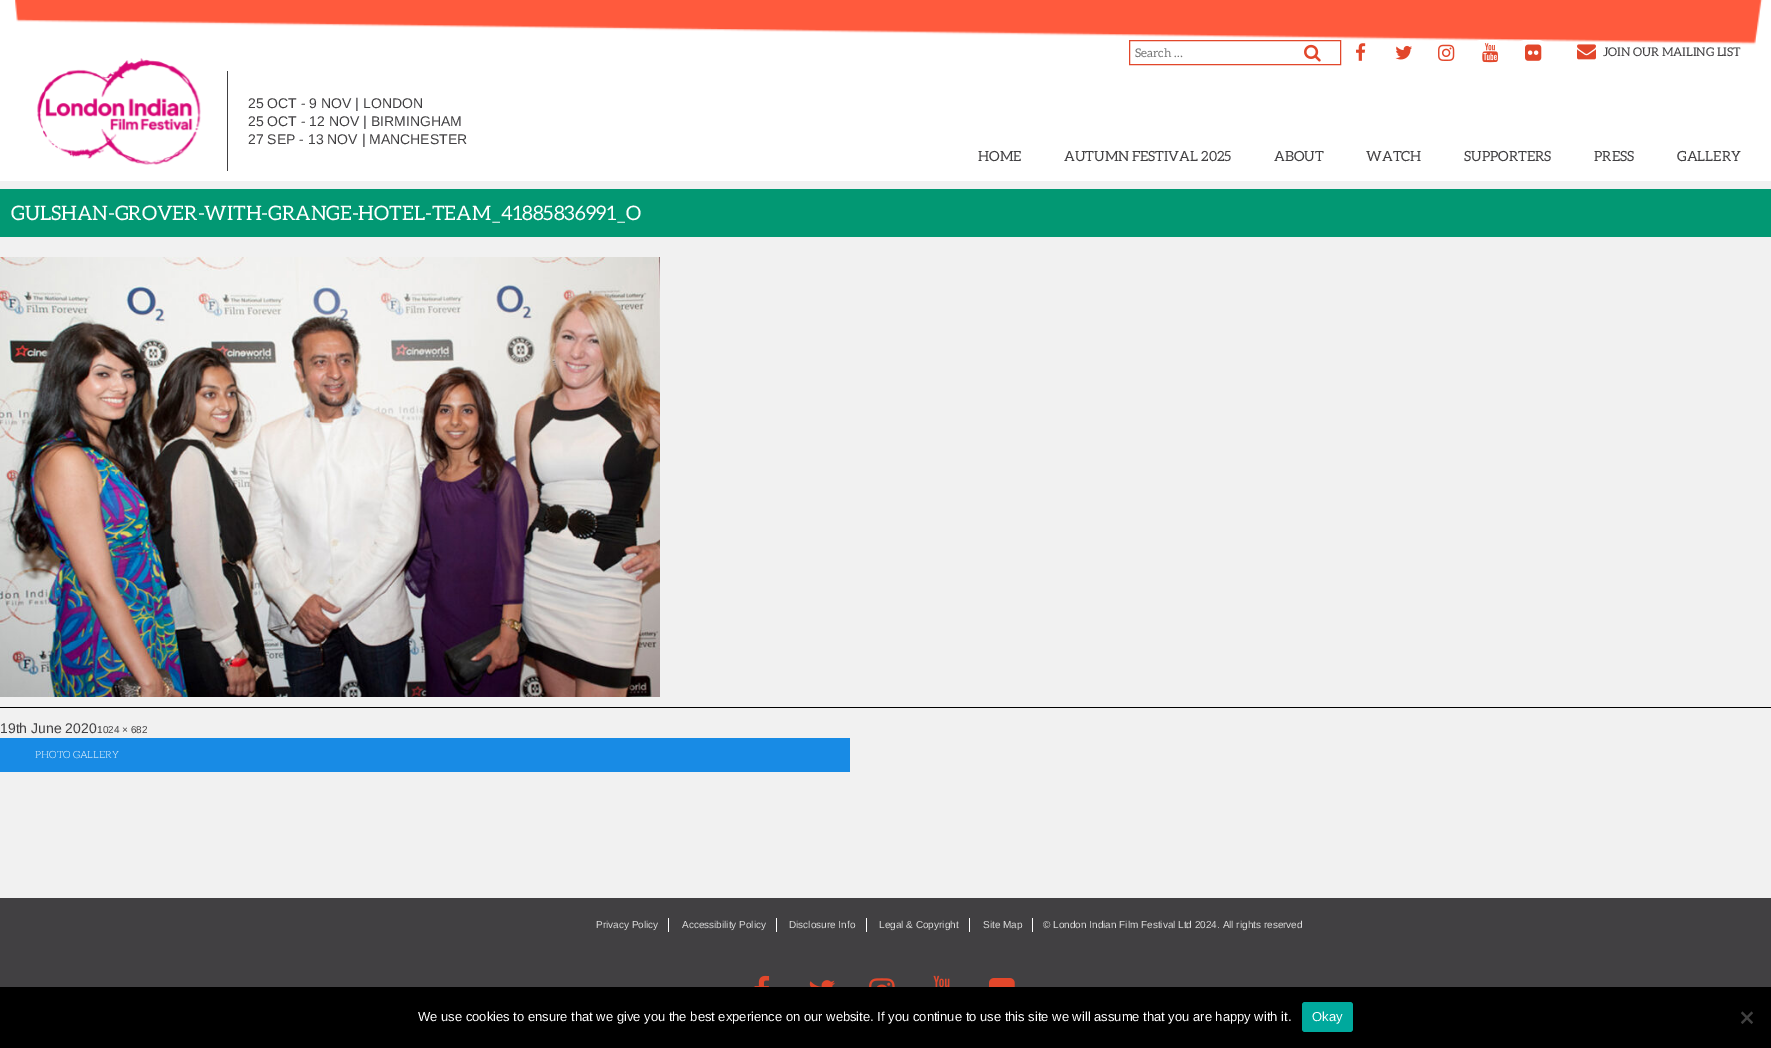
%!PS
<< /PageSize [1771 1048] >> setpagedevice
/m/moveto load def
/l/rlineto load def
/z/closepath load def
/f/fill load def
/C { dup -16 bitshift 255 div exch dup -8 bitshift 255 and 255 div exch 255 and 255 div setrgbcolor } def
/F { [ exch dup neg 0 0 3 -1 roll 0 0 ] selectfont } def
/T { moveto show } def
/R { rectfill } def
/Q { 5 dict begin { /r /h /w /y /x } { exch def } forall
  x r add y moveto x w add y 2 copy h add r arct x w add y h add x 1 index r arct
  x y h add x y r arct x y 2 copy exch w add exch r arct closepath end } def
/I { 5 dict begin { /h /w /y /x /name } { exch def } forall
  gsave x y translate w h scale
  w h 8 [w 0 0 h 0 0] name (r) file false 3 colorimage grestore end } def
0 1048 translate 1 -1 scale
4 setmiterlimit
16#F1F1F1 C
0 0 1771 1048 R
16#FFFFFF C
0 0 1771 181 R
(1.rgb) 15 0 1748 45 I
16#E2472B C
1129.5 40.5 211 24 rectstroke
/Aleo-Regular 12 F
16#757575 C
(Search …) 1135 57 T
(2.rgb) 1304 44 17 18 I
(3.rgb) 1356 43 10 18 I
(4.rgb) 1395 45 17 15 I
16#FFFFFF C
1427 40 35 23 11.5 Q f
(5.rgb) 1438 44 17 17 I
1470 40 36 23 11.5 Q f
(6.rgb) 1482 43 16 20 I
1514 40 35 23 11.5 Q f
(7.rgb) 1525 44 17 17 I
(8.rgb) 1577 44 19 16 I
16#414042 C
(JOIN OUR MAILING LIST) 1603 56 T
(9.rgb) 37 58 164 107 I
227 71 1 100 R
/LiberationSans-Regular 14 F
(25 OCT - 9 NOV | LONDON) 248 108 T
(25 OCT - 12 NOV | BIRMINGHAM) 248 126 T
(27 SEP - 13 NOV | MANCHESTER) 248 144 T
/Aleo-Regular 14 F
(HOME) 978 161 T
(AUTUMN FESTIVAL 2025) 1064 161 T
(ABOUT) 1274 161 T
(WATCH) 1366 161 T
(SUPPORTERS) 1464 161 T
(PRESS) 1594 161 T
(GALLERY) 1677 161 T
16#029873 C
0 189 1771 48 R
/Aleo-Regular 20 F
16#FFFFFF C
(GULSHAN-GROVER-WITH-GRANGE-HOTEL-TEAM_41885836991_O) 11 220 T
16#000000 C
0 707 1771 1 R
(10.rgb) 0 257 660 440 I
/LiberationSans-Regular 14 F
16#414042 C
(19th June 2020) 0 733 T
/LiberationSans-Regular 10 F
(1024 × 682) 97 733 T
16#188BE5 C
0 738 850 34 R
/Aleo-Light 10 F
16#FFFFFF C
(PHOTO GALLERY) 35 758 T
16#414042 C
0 898 1771 89 R
16#FFFFFF C
668 918 1 14 R
/LiberationSans-Regular 10 F
16#DDDDDD C
(Privacy Policy) 596 928 T
16#FFFFFF C
776 918 1 14 R
16#DDDDDD C
(Accessibility Policy) 682 928 T
16#FFFFFF C
866 918 1 14 R
16#DDDDDD C
(Disclosure Info) 789 928 T
16#FFFFFF C
969 918 1 14 R
16#DDDDDD C
(Legal & Copyright) 879 928 T
16#FFFFFF C
1032 918 1 14 R
16#DDDDDD C
(Site Map) 983 928 T
(© London Indian Film Festival Ltd 2024. All rights reserved) 1043 928 T
(11.rgb) 754 975 16 12 I
(12.rgb) 809 980 26 7 I
(13.rgb) 869 978 26 9 I
(14.rgb) 933 975 17 12 I
(15.rgb) 989 978 26 9 I
16#000000 C
0 987 1771 61 R
/LiberationSans-Regular 13 F
16#FFFFFF C
(We use cookies to ensure that we give you the best experience on our website. If you continue to use this site we will assume that you are happy with it.) 418 1021 T
16#00A99D C
1302 1002 51 30 3 Q f
16#FFFFFF C
(Okay) 1312 1021 T
16#404040 C
1751.5 1011.5 m 1.5 1.5 l -10.5 11 l -1.5 -1.5 l z f
1741 1013 m 1.5 -1.5 l 10.5 11 l -1.5 1.5 l z f
showpage
